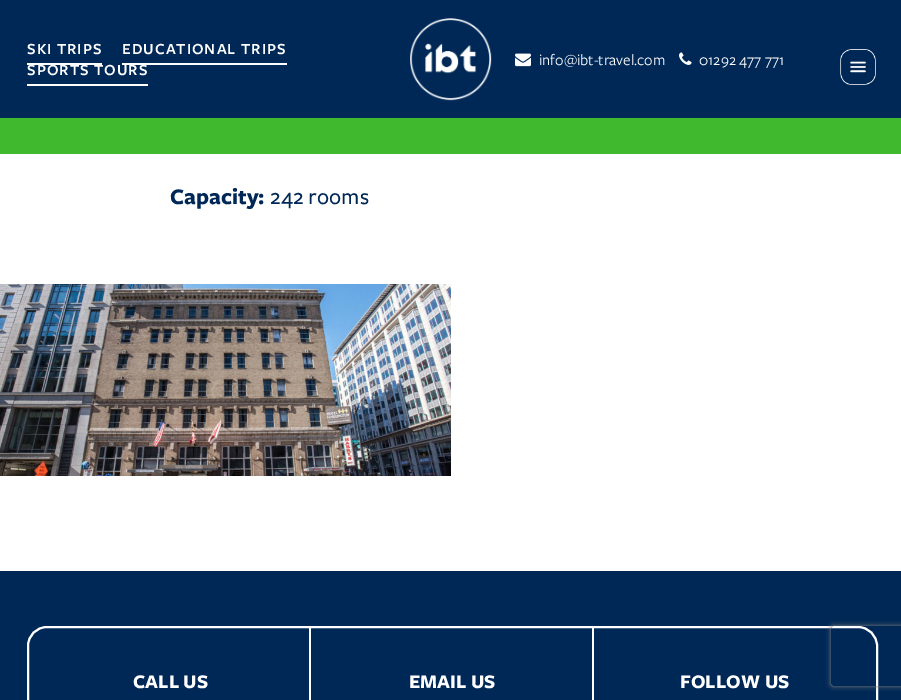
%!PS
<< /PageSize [901 700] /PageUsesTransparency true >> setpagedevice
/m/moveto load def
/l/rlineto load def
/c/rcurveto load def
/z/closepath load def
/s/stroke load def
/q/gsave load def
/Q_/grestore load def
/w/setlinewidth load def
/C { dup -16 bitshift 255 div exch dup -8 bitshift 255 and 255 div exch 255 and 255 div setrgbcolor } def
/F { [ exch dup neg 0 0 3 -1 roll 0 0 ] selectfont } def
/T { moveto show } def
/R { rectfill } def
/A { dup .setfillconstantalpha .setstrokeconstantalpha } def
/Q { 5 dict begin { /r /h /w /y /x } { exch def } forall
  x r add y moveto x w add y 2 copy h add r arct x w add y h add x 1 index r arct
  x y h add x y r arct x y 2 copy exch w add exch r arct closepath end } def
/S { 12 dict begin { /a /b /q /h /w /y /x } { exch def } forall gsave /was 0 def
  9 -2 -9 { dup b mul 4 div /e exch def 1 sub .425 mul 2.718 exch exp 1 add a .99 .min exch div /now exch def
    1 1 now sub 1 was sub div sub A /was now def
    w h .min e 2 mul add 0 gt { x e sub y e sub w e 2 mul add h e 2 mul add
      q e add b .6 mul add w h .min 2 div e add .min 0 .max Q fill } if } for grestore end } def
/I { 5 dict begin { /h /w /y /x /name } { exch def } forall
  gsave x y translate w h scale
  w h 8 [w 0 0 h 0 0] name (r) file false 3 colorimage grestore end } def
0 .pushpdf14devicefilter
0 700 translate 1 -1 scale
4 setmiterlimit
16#FFFFFF C
0 0 901 700 R
16#002856 C
0 0 901 118 R
/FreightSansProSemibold-SemiBold 16 F
16#FFFFFF C
27 54 m 1 0 (SKI TRIPS) ashow
27 63 75 2 R
122 54 m 1 0 (EDUCATIONAL TRIPS) ashow
122 63 165 2 R
27 75 m 1 0 (SPORTS TOURS) ashow
27 84 121 2 R
(1.rgb) 410 18 82 83 I
(2.rgb) 515 53 16 14 I
/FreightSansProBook-Regular 16 F
(info@ibt-travel.com) 539 65 T
(3.rgb) 679 52 13 13 I
(01292 477 771) 699 65 T
(4.rgb) 840 49 36 36 I
16#41B92E C
0 118 901 36 R
/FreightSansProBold-Bold 23 F
16#002856 C
(Capacity:) 170 204 T
/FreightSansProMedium-Medium 23 F
(242 rooms) 270 204 T
(5.rgb) 0 284 451 192 I
0 571 901 129 R
16#FFFFFF C
2 w
28 627 849 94 19 Q s
/FreightSansProBold-Bold 20 F
(CALL US) 133 688 T
309 628 2 72 R
(EMAIL US) 409 688 T
592 628 2 72 R
(FOLLOW US) 680 688 T
q
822 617 m 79 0 l 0 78 l -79 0 l z 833 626 m 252 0 l 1 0 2 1 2 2 c 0 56 l 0 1 -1 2 -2 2 c -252 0 l -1 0 -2 -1 -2 -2 c 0 -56 l 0 -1 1 -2 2 -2 c z eoclip newpath
16#808080 C
831 626 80 60 2 2.5 1 S
Q_
.poppdf14devicefilter showpage
